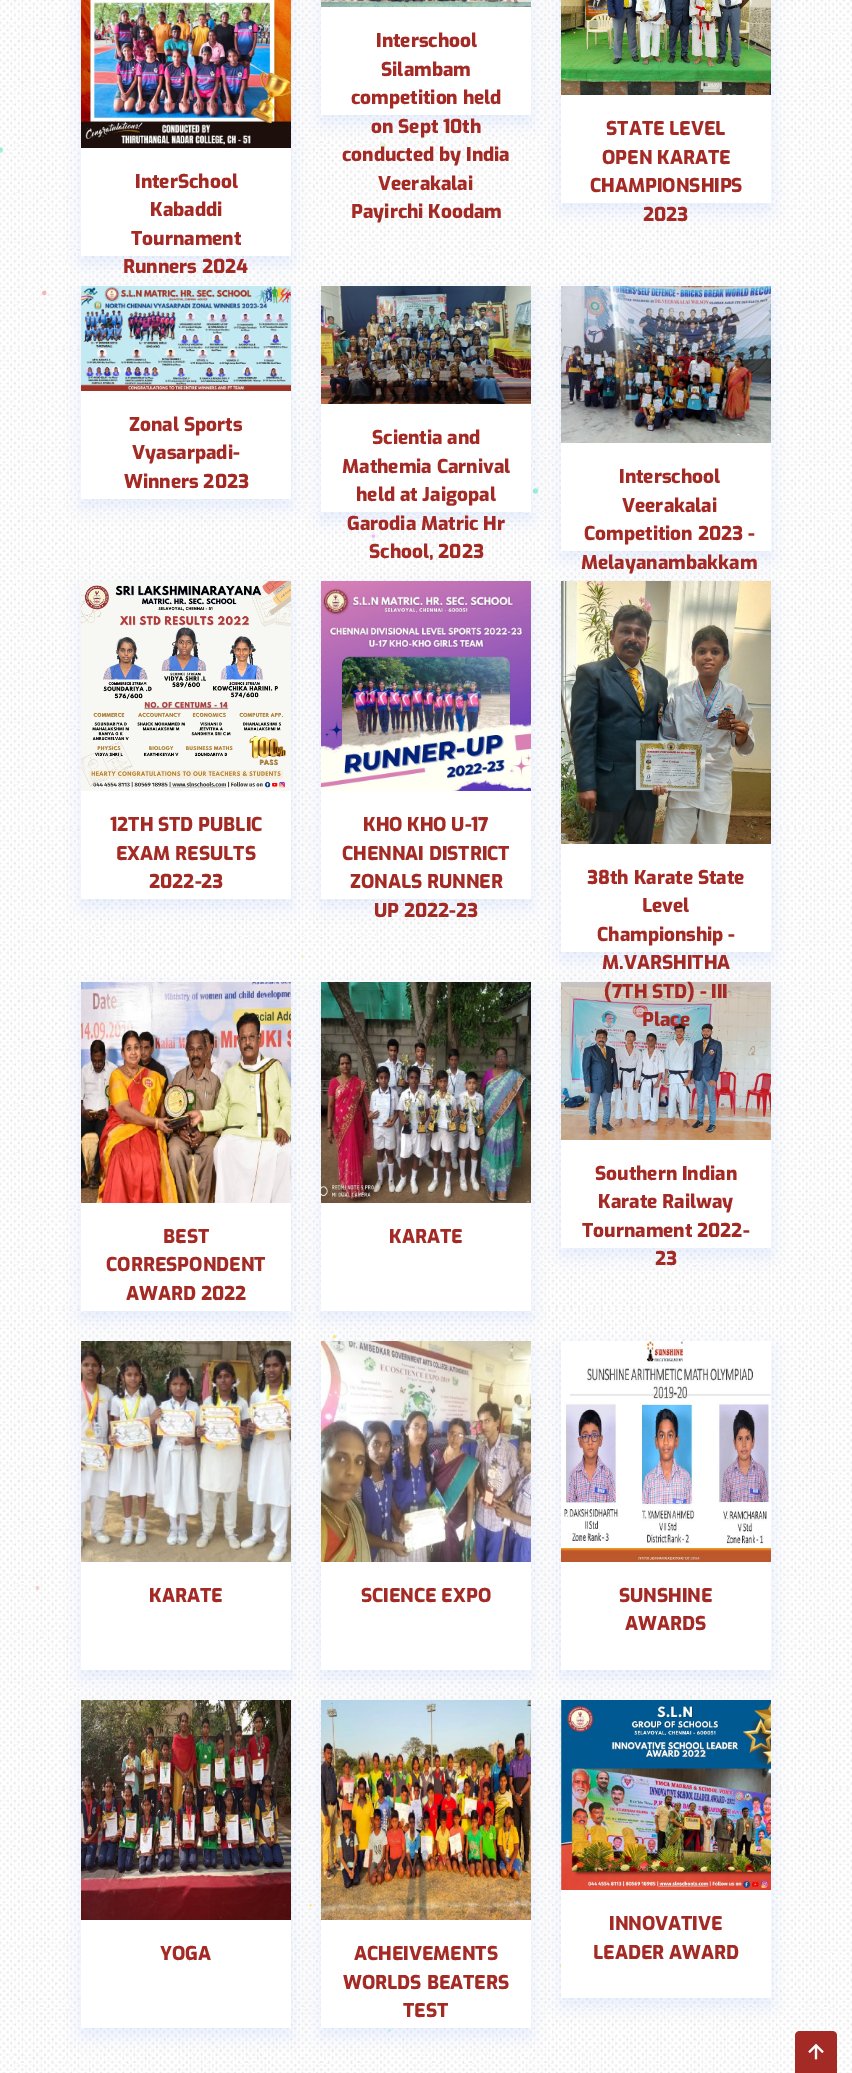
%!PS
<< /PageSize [852 2073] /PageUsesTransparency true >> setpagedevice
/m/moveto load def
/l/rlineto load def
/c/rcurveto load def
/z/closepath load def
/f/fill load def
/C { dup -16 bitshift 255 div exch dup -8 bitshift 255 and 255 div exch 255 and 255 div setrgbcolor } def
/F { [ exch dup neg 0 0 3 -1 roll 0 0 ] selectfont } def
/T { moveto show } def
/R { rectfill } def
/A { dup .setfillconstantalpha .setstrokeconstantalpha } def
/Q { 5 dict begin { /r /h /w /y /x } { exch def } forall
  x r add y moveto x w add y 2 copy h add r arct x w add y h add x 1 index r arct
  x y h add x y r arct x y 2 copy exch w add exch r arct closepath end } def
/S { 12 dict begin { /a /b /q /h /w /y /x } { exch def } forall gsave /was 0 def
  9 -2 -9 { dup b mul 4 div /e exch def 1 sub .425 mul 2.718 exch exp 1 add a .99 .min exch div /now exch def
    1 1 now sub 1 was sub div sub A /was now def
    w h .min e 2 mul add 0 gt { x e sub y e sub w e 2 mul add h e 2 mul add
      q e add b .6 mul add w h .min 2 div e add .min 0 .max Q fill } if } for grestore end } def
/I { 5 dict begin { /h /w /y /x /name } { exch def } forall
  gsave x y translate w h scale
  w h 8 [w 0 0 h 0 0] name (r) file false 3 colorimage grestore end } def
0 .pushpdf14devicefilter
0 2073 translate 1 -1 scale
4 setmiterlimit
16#FFFFFF C
0 0 852 2073 R
(1.rgb) 0 0 852 2073 I
(2.rgb) 0 30 561 2002 I
16#92B8FF C
81 -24 210 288 0 8 .2 S
16#FFFFFF C
81 148 210 108 R
(3.rgb) 81 0 210 148 I
/Exo-ExtraBold 19 F
16#A42B25 C
(InterSchool) 135 188 T
(Kabaddi) 150 216 T
(Tournament) 131 245 T
16#92B8FF C
81 294 210 213 0 8 .2 S
16#A42B25 C
(Runners 2024) 123 273 T
16#92B8FF C
321 -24 210 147 0 8 .2 S
16#FFFFFF C
321 7 210 108 R
(4.rgb) 321 0 210 7 I
16#A42B25 C
(Interschool) 376 47 T
(Silambam) 381 76 T
(competition held) 351 104 T
(on Sept 10th) 371 133 T
(conducted by India) 342 161 T
(Veerakalai) 378 190 T
(Payirchi Koodam) 351 218 T
16#92B8FF C
561 -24 210 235 0 8 .2 S
16#FFFFFF C
561 95 210 108 R
(5.rgb) 561 0 210 95 I
16#A42B25 C
(STATE LEVEL) 606 135 T
(OPEN KARATE) 602 164 T
(CHAMPIONSHIPS) 590 192 T
(2023) 643 221 T
16#FFFFFF C
81 391 210 108 R
(6.rgb) 81 286 210 105 I
16#A42B25 C
(Zonal Sports) 129 431 T
(Vyasarpadi-) 132 459 T
(Winners 2023) 124 488 T
16#92B8FF C
321 294 210 226 0 8 .2 S
16#FFFFFF C
321 404 210 108 R
(7.rgb) 321 286 210 118 I
16#A42B25 C
(Scientia and) 372 444 T
(Mathemia Carnival) 342 473 T
(held at Jaigopal) 356 501 T
(Garodia Matric Hr) 347 530 T
(School, 2023) 369 558 T
16#92B8FF C
561 294 210 265 0 8 .2 S
16#FFFFFF C
561 443 210 108 R
(8.rgb) 561 286 210 157 I
16#A42B25 C
(Interschool) 619 483 T
(Veerakalai) 622 512 T
(Competition 2023 -) 584 540 T
16#92B8FF C
561 589 210 371 0 8 .2 S
16#A42B25 C
(Melayanambakkam) 581 569 T
16#92B8FF C
81 589 210 318 0 8 .2 S
16#FFFFFF C
81 791 210 108 R
(9.rgb) 81 581 210 210 I
16#A42B25 C
(12TH STD PUBLIC) 110 831 T
(EXAM RESULTS) 116 860 T
(2022-23) 149 888 T
16#92B8FF C
321 589 210 318 0 8 .2 S
16#FFFFFF C
321 791 210 108 R
(10.rgb) 321 581 210 210 I
16#A42B25 C
(KHO KHO U-17) 363 831 T
(CHENNAI DISTRICT) 342 860 T
(ZONALS RUNNER) 350 888 T
(UP 2022-23) 374 917 T
16#FFFFFF C
561 844 210 108 R
(11.rgb) 561 581 210 263 I
16#A42B25 C
(38th Karate State) 587 884 T
(Level) 642 912 T
(Championship -) 597 941 T
16#92B8FF C
561 990 210 266 0 8 .2 S
16#A42B25 C
(M.VARSHITHA) 602 969 T
(14.rgb) 561 982 210 158 I
(\(7TH STD\) - III) 604 998 T
(Place) 642 1026 T
16#92B8FF C
81 990 210 329 0 8 .2 S
16#FFFFFF C
81 1203 210 108 R
(12.rgb) 81 982 210 221 I
16#A42B25 C
(BEST) 163 1243 T
(CORRESPONDENT) 106 1271 T
(AWARD 2022) 126 1300 T
16#92B8FF C
321 990 210 329 0 8 .2 S
16#FFFFFF C
321 1203 210 108 R
(13.rgb) 321 982 210 221 I
16#A42B25 C
(KARATE) 389 1243 T
16#FFFFFF C
561 1140 210 108 R
16#A42B25 C
(Southern Indian) 595 1180 T
(Karate Railway) 598 1208 T
(Tournament 2022-) 582 1237 T
(23) 655 1265 T
16#92B8FF C
81 1349 210 329 0 8 .2 S
16#FFFFFF C
81 1562 210 108 R
(15.rgb) 81 1341 210 221 I
16#A42B25 C
(KARATE) 149 1602 T
16#92B8FF C
321 1349 210 329 0 8 .2 S
16#FFFFFF C
321 1562 210 108 R
(16.rgb) 321 1341 210 221 I
16#A42B25 C
(SCIENCE EXPO) 361 1602 T
16#92B8FF C
561 1349 210 329 0 8 .2 S
16#FFFFFF C
561 1562 210 108 R
(17.rgb) 561 1341 210 221 I
16#A42B25 C
(SUNSHINE) 619 1602 T
(AWARDS) 625 1630 T
16#92B8FF C
81 1708 210 328 0 8 .2 S
16#FFFFFF C
81 1920 210 108 R
(18.rgb) 81 1700 210 220 I
16#A42B25 C
(YOGA) 160 1960 T
16#92B8FF C
321 1708 210 328 0 8 .2 S
16#FFFFFF C
321 1920 210 108 R
(19.rgb) 321 1700 210 220 I
16#A42B25 C
(ACHEIVEMENTS) 354 1960 T
(WORLDS BEATERS) 343 1989 T
(TEST) 403 2017 T
16#92B8FF C
561 1708 210 298 0 8 .2 S
16#FFFFFF C
561 1890 210 108 R
(20.rgb) 561 1700 210 190 I
16#A42B25 C
(INNOVATIVE) 609 1930 T
(LEADER AWARD) 593 1959 T
800 2031 m 32 0 l 3 0 5 2 5 5 c 0 37 l -42 0 l 0 -37 l 0 -3 2 -5 5 -5 c z f
(21.rgb) 808 2043 16 17 I
.poppdf14devicefilter showpage
